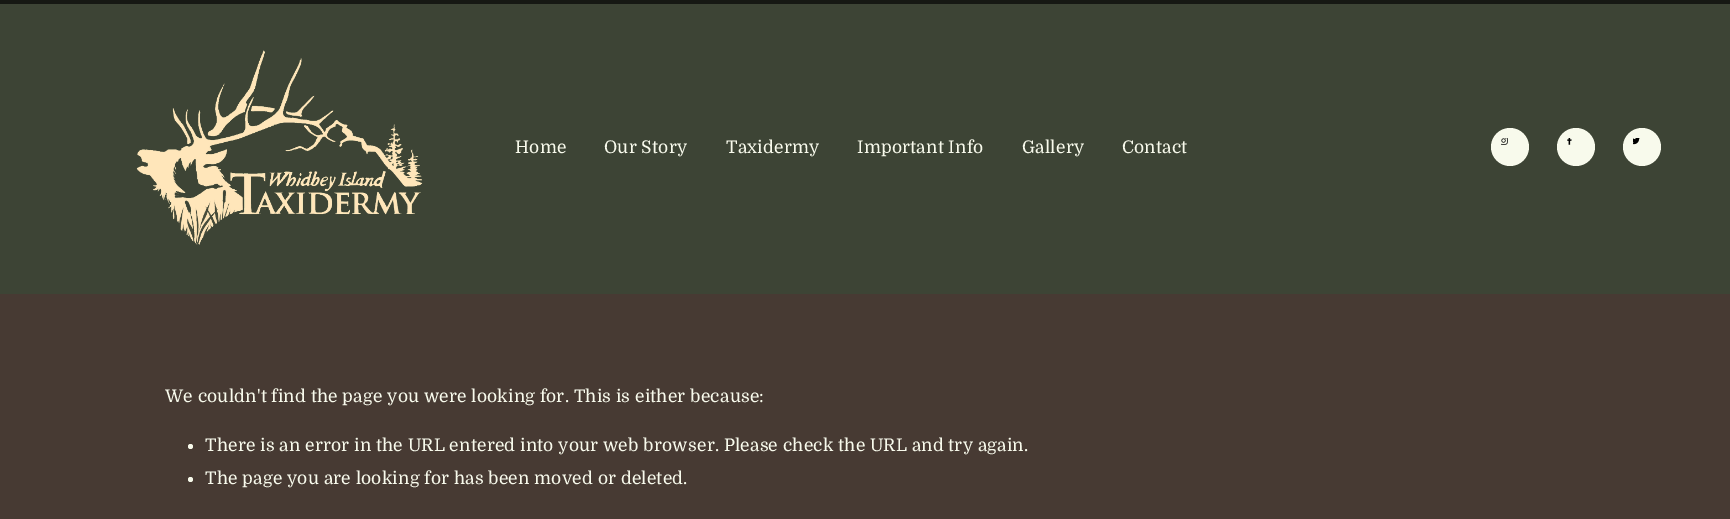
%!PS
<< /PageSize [1730 519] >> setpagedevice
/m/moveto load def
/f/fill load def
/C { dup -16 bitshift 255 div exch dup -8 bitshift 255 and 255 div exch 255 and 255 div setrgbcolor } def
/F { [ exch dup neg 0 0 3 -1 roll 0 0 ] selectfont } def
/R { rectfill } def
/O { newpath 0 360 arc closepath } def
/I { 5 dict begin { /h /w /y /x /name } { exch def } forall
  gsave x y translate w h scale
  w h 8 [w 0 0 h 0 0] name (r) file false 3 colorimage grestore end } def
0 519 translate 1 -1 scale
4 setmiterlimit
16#473A33 C
0 0 1730 519 R
16#3D4435 C
0 4 1730 290 R
16#161813 C
0 0 1730 4 R
(1.rgb) 136 50 287 195 I
/Domine-Regular 17.45 F
16#F8FAEC C
515 153 m .17 0 (Home) ashow
604 153 m .17 0 (Our Story) ashow
726 153 m .17 0 (Taxidermy) ashow
857 153 m .17 0 (Important Info) ashow
1022 153 m .17 0 (Gallery) ashow
1122 153 m .17 0 (Contact) ashow
1510 147 19 O f
(2.rgb) 1501 138 7 7 I
1576 147 19 O f
(3.rgb) 1567 138 5 7 I
1642 147 19 O f
(4.rgb) 1633 138 7 7 I
165 402 m .17 0 (We couldn't find the page you were looking for. This is either because:) ashow
190.5 446.5 2.5 O f
205 451 m .17 0 (There is an error in the URL entered into your web browser. Please check the URL and try again.) ashow
190.5 479.5 2.5 O f
205 484 m .17 0 (The page you are looking for has been moved or deleted.) ashow
showpage
